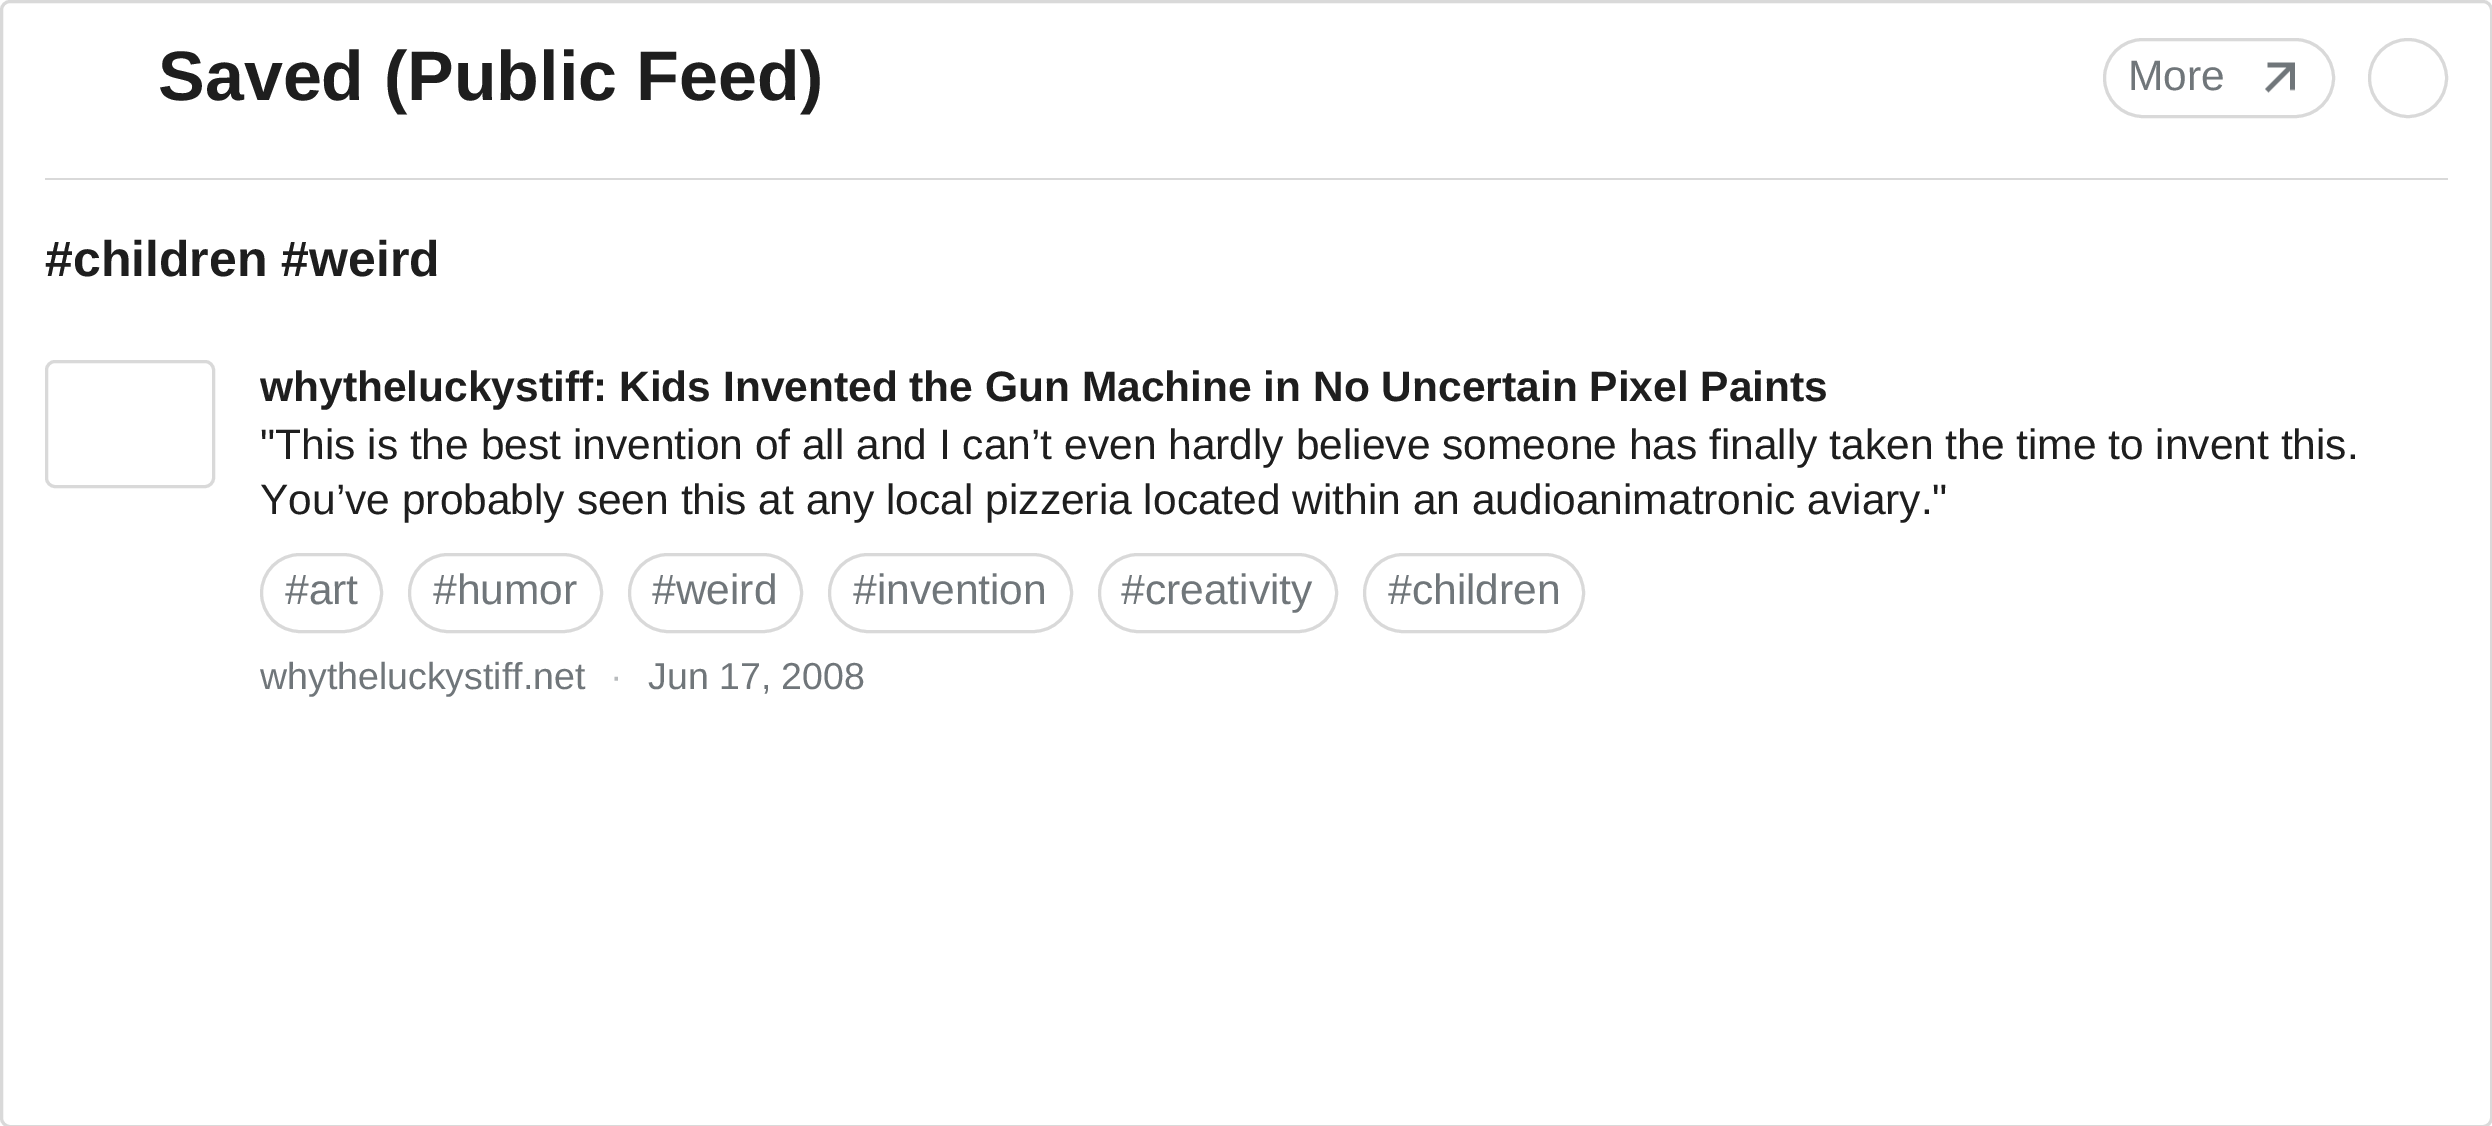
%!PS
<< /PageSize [2492 1126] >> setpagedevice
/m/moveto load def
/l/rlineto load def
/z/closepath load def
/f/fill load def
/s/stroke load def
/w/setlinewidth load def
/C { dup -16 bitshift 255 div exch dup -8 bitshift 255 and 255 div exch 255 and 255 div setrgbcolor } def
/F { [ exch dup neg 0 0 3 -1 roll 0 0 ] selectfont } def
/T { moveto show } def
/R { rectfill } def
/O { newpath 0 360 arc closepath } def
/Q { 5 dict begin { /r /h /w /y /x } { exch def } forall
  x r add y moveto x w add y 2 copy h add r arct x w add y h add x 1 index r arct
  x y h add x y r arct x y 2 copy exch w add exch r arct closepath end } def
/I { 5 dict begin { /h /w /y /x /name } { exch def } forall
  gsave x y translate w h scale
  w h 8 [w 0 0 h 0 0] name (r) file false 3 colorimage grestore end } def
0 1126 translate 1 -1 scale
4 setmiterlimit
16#FFFFFF C
0 0 2492 1126 R
16#D9D9D9 C
3 w
2104.5 39.5 229 77 38.5 Q s
(1.rgb) 2265 62 30 31 I
2408 78 38.5 O s
45 178 m 0 2 l 2403 0 l 0 133 l 0 -135 l z f
46.5 361.5 167 125 8.5 Q s
261.5 554.5 120 77 38.5 Q s
409.5 554.5 192 77 38.5 Q s
629.5 554.5 172 77 38.5 Q s
829.5 554.5 242 77 38.5 Q s
1099.5 554.5 237 77 38.5 Q s
1364.5 554.5 219 77 38.5 Q s
1.5 1.5 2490 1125 8.5 Q s
/LiberationSans-Bold 70 F
16#1E1E1E C
(Saved \(Public Feed\)) 158 100 T
/LiberationSans-Regular 42.5 F
16#70767A C
(More) 2128 90 T
/LiberationSans-Bold 50 F
16#1E1E1E C
(#children #weird) 45 276 T
/LiberationSans-Bold 42.5 F
(whytheluckystiff: Kids Invented the Gun Machine in No Uncertain Pixel Paints) 260 401 T
/LiberationSans-Regular 42.5 F
("This is the best invention of all and I can’t even hardly believe someone has finally taken the time to invent this.) 260 459 T
(You’ve probably seen this at any local pizzeria located within an audioanimatronic aviary.") 260 514 T
16#70767A C
(#art) 285 604 T
(#humor) 433 604 T
(#weird) 652 604 T
(#invention) 853 604 T
(#creativity) 1121 604 T
(#children) 1388 604 T
/LiberationSans-Regular 37.5 F
(whytheluckystiff.net) 260 689 T
16#B8BBBD C
(·) 610 689 T
16#70767A C
(Jun 17, 2008) 648 689 T
showpage
